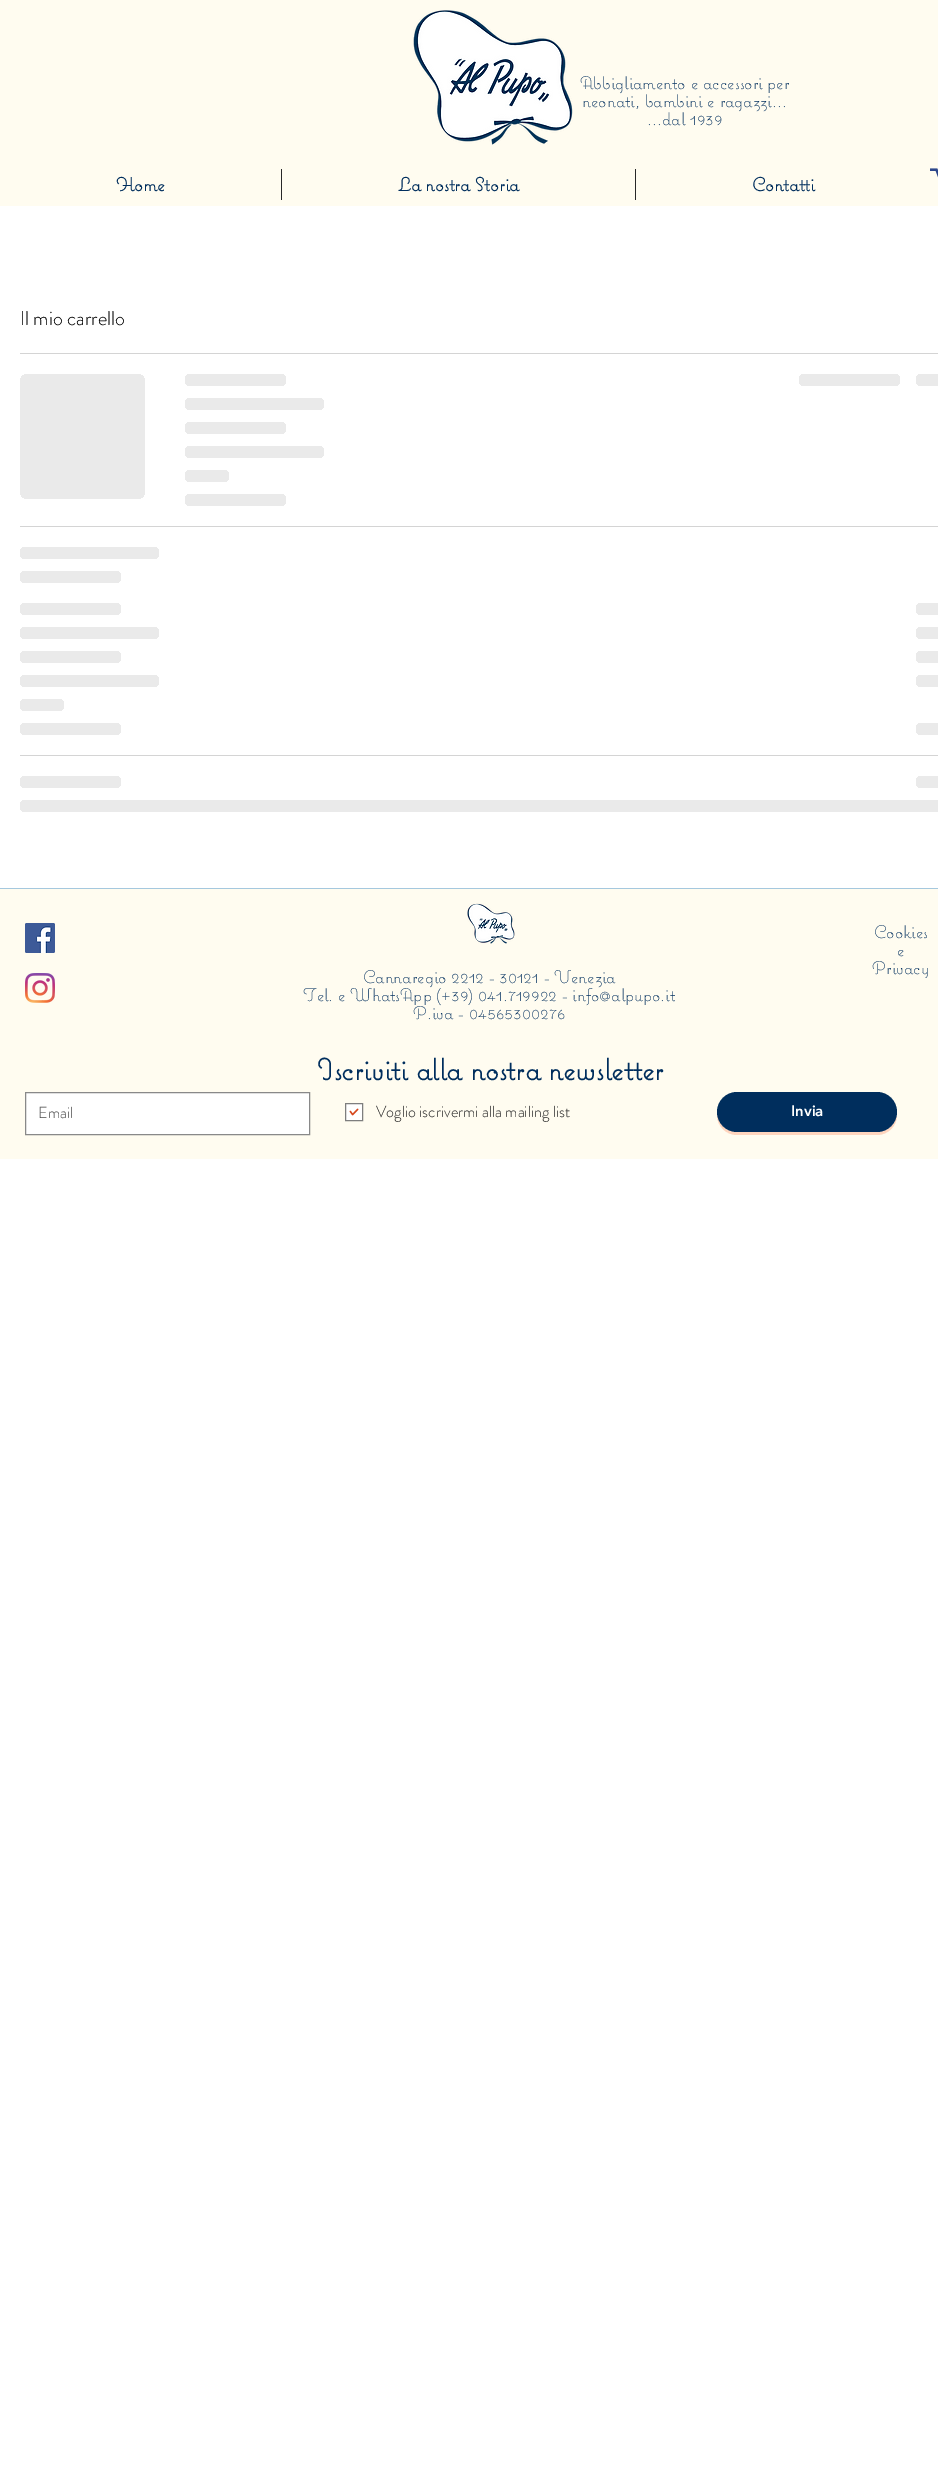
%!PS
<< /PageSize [938 2477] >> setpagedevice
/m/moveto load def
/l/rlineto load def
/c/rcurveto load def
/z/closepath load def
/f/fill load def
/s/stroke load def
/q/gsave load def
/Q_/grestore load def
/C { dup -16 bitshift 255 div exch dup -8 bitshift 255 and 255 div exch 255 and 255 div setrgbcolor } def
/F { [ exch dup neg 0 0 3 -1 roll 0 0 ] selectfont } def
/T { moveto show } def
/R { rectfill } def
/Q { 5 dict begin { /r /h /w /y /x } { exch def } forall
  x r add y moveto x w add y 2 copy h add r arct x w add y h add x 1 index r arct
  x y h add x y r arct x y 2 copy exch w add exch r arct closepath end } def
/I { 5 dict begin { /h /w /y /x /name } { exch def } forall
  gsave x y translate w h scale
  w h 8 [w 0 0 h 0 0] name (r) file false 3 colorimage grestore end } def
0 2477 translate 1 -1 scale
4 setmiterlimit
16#FFFFFF C
0 0 938 2477 R
16#FFFCF0 C
0 0 938 206 R
(1.rgb) 413 10 160 135 I
/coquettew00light-Light 18 F
16#002E5D C
(Abbigliamento e accessori per) 580 89 T
(neonati, bambini e ragazzi...) 582 107 T
(...dal 1939) 647 125 T
(2.rgb) 930 168 8 10 I
/coquettew00light-Bold 19 F
(Home) 116 191 T
16#282828 C
281 169 1 31 R
16#002E5D C
(La nostra Storia) 398 191 T
16#282828 C
635 169 1 31 R
16#002E5D C
(Contatti) 752 191 T
16#D4D4D4 C
20 353 918 1 R
/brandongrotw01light-Light 20 F
16#000000 C
(Il mio carrello) 20 325 T
q 20 374 125 125 8 Q clip newpath
<< /ShadingType 2 /ColorSpace /DeviceRGB /Coords [20 437 520 437] /Extend [true true] /Function << /FunctionType 3 /Domain [0 1] /Functions [<< /FunctionType 2 /Domain [0 1] /C0 [.918 .918 .918] /C1 [.918 .918 .918] /N 1 >> << /FunctionType 2 /Domain [0 1] /C0 [.918 .918 .918] /C1 [.831 .831 .831] /N 1 >> << /FunctionType 2 /Domain [0 1] /C0 [.831 .831 .831] /C1 [.918 .918 .918] /N 1 >> << /FunctionType 2 /Domain [0 1] /C0 [.918 .918 .918] /C1 [.918 .918 .918] /N 1 >>] /Bounds [.25 .37 .63] /Encode [0 1 0 1 0 1 0 1] >> >> shfill Q_
q 185 374 101 12 6 Q clip newpath
<< /ShadingType 2 /ColorSpace /DeviceRGB /Coords [185 380 589 380] /Extend [true true] /Function << /FunctionType 3 /Domain [0 1] /Functions [<< /FunctionType 2 /Domain [0 1] /C0 [.918 .918 .918] /C1 [.918 .918 .918] /N 1 >> << /FunctionType 2 /Domain [0 1] /C0 [.918 .918 .918] /C1 [.831 .831 .831] /N 1 >> << /FunctionType 2 /Domain [0 1] /C0 [.831 .831 .831] /C1 [.918 .918 .918] /N 1 >> << /FunctionType 2 /Domain [0 1] /C0 [.918 .918 .918] /C1 [.918 .918 .918] /N 1 >>] /Bounds [.25 .37 .63] /Encode [0 1 0 1 0 1 0 1] >> >> shfill Q_
q 185 398 139 12 6 Q clip newpath
<< /ShadingType 2 /ColorSpace /DeviceRGB /Coords [185 404 741 404] /Extend [true true] /Function << /FunctionType 3 /Domain [0 1] /Functions [<< /FunctionType 2 /Domain [0 1] /C0 [.918 .918 .918] /C1 [.918 .918 .918] /N 1 >> << /FunctionType 2 /Domain [0 1] /C0 [.918 .918 .918] /C1 [.831 .831 .831] /N 1 >> << /FunctionType 2 /Domain [0 1] /C0 [.831 .831 .831] /C1 [.918 .918 .918] /N 1 >> << /FunctionType 2 /Domain [0 1] /C0 [.918 .918 .918] /C1 [.918 .918 .918] /N 1 >>] /Bounds [.25 .37 .63] /Encode [0 1 0 1 0 1 0 1] >> >> shfill Q_
q 185 422 101 12 6 Q clip newpath
<< /ShadingType 2 /ColorSpace /DeviceRGB /Coords [185 428 589 428] /Extend [true true] /Function << /FunctionType 3 /Domain [0 1] /Functions [<< /FunctionType 2 /Domain [0 1] /C0 [.918 .918 .918] /C1 [.918 .918 .918] /N 1 >> << /FunctionType 2 /Domain [0 1] /C0 [.918 .918 .918] /C1 [.831 .831 .831] /N 1 >> << /FunctionType 2 /Domain [0 1] /C0 [.831 .831 .831] /C1 [.918 .918 .918] /N 1 >> << /FunctionType 2 /Domain [0 1] /C0 [.918 .918 .918] /C1 [.918 .918 .918] /N 1 >>] /Bounds [.25 .37 .63] /Encode [0 1 0 1 0 1 0 1] >> >> shfill Q_
q 185 446 139 12 6 Q clip newpath
<< /ShadingType 2 /ColorSpace /DeviceRGB /Coords [185 452 741 452] /Extend [true true] /Function << /FunctionType 3 /Domain [0 1] /Functions [<< /FunctionType 2 /Domain [0 1] /C0 [.918 .918 .918] /C1 [.918 .918 .918] /N 1 >> << /FunctionType 2 /Domain [0 1] /C0 [.918 .918 .918] /C1 [.831 .831 .831] /N 1 >> << /FunctionType 2 /Domain [0 1] /C0 [.831 .831 .831] /C1 [.918 .918 .918] /N 1 >> << /FunctionType 2 /Domain [0 1] /C0 [.918 .918 .918] /C1 [.918 .918 .918] /N 1 >>] /Bounds [.25 .37 .63] /Encode [0 1 0 1 0 1 0 1] >> >> shfill Q_
q 185 470 44 12 6 Q clip newpath
<< /ShadingType 2 /ColorSpace /DeviceRGB /Coords [185 476 361 476] /Extend [true true] /Function << /FunctionType 3 /Domain [0 1] /Functions [<< /FunctionType 2 /Domain [0 1] /C0 [.918 .918 .918] /C1 [.918 .918 .918] /N 1 >> << /FunctionType 2 /Domain [0 1] /C0 [.918 .918 .918] /C1 [.831 .831 .831] /N 1 >> << /FunctionType 2 /Domain [0 1] /C0 [.831 .831 .831] /C1 [.918 .918 .918] /N 1 >> << /FunctionType 2 /Domain [0 1] /C0 [.918 .918 .918] /C1 [.918 .918 .918] /N 1 >>] /Bounds [.25 .37 .63] /Encode [0 1 0 1 0 1 0 1] >> >> shfill Q_
q 185 494 101 12 6 Q clip newpath
<< /ShadingType 2 /ColorSpace /DeviceRGB /Coords [185 500 589 500] /Extend [true true] /Function << /FunctionType 3 /Domain [0 1] /Functions [<< /FunctionType 2 /Domain [0 1] /C0 [.918 .918 .918] /C1 [.918 .918 .918] /N 1 >> << /FunctionType 2 /Domain [0 1] /C0 [.918 .918 .918] /C1 [.831 .831 .831] /N 1 >> << /FunctionType 2 /Domain [0 1] /C0 [.831 .831 .831] /C1 [.918 .918 .918] /N 1 >> << /FunctionType 2 /Domain [0 1] /C0 [.918 .918 .918] /C1 [.918 .918 .918] /N 1 >>] /Bounds [.25 .37 .63] /Encode [0 1 0 1 0 1 0 1] >> >> shfill Q_
q 799 374 101 12 6 Q clip newpath
<< /ShadingType 2 /ColorSpace /DeviceRGB /Coords [799 380 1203 380] /Extend [true true] /Function << /FunctionType 3 /Domain [0 1] /Functions [<< /FunctionType 2 /Domain [0 1] /C0 [.918 .918 .918] /C1 [.918 .918 .918] /N 1 >> << /FunctionType 2 /Domain [0 1] /C0 [.918 .918 .918] /C1 [.831 .831 .831] /N 1 >> << /FunctionType 2 /Domain [0 1] /C0 [.831 .831 .831] /C1 [.918 .918 .918] /N 1 >> << /FunctionType 2 /Domain [0 1] /C0 [.918 .918 .918] /C1 [.918 .918 .918] /N 1 >>] /Bounds [.25 .37 .63] /Encode [0 1 0 1 0 1 0 1] >> >> shfill Q_
q 916 374 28 12 6 Q clip newpath
<< /ShadingType 2 /ColorSpace /DeviceRGB /Coords [916 380 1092 380] /Extend [true true] /Function << /FunctionType 3 /Domain [0 1] /Functions [<< /FunctionType 2 /Domain [0 1] /C0 [.918 .918 .918] /C1 [.918 .918 .918] /N 1 >> << /FunctionType 2 /Domain [0 1] /C0 [.918 .918 .918] /C1 [.831 .831 .831] /N 1 >> << /FunctionType 2 /Domain [0 1] /C0 [.831 .831 .831] /C1 [.918 .918 .918] /N 1 >> << /FunctionType 2 /Domain [0 1] /C0 [.918 .918 .918] /C1 [.918 .918 .918] /N 1 >>] /Bounds [.25 .37 .63] /Encode [0 1 0 1 0 1 0 1] >> >> shfill Q_
16#D4D4D4 C
20 526 918 1 R
q 20 547 139 12 6 Q clip newpath
<< /ShadingType 2 /ColorSpace /DeviceRGB /Coords [20 553 576 553] /Extend [true true] /Function << /FunctionType 3 /Domain [0 1] /Functions [<< /FunctionType 2 /Domain [0 1] /C0 [.918 .918 .918] /C1 [.918 .918 .918] /N 1 >> << /FunctionType 2 /Domain [0 1] /C0 [.918 .918 .918] /C1 [.831 .831 .831] /N 1 >> << /FunctionType 2 /Domain [0 1] /C0 [.831 .831 .831] /C1 [.918 .918 .918] /N 1 >> << /FunctionType 2 /Domain [0 1] /C0 [.918 .918 .918] /C1 [.918 .918 .918] /N 1 >>] /Bounds [.25 .37 .63] /Encode [0 1 0 1 0 1 0 1] >> >> shfill Q_
q 20 571 101 12 6 Q clip newpath
<< /ShadingType 2 /ColorSpace /DeviceRGB /Coords [20 577 424 577] /Extend [true true] /Function << /FunctionType 3 /Domain [0 1] /Functions [<< /FunctionType 2 /Domain [0 1] /C0 [.918 .918 .918] /C1 [.918 .918 .918] /N 1 >> << /FunctionType 2 /Domain [0 1] /C0 [.918 .918 .918] /C1 [.831 .831 .831] /N 1 >> << /FunctionType 2 /Domain [0 1] /C0 [.831 .831 .831] /C1 [.918 .918 .918] /N 1 >> << /FunctionType 2 /Domain [0 1] /C0 [.918 .918 .918] /C1 [.918 .918 .918] /N 1 >>] /Bounds [.25 .37 .63] /Encode [0 1 0 1 0 1 0 1] >> >> shfill Q_
q 20 603 101 12 6 Q clip newpath
<< /ShadingType 2 /ColorSpace /DeviceRGB /Coords [20 609 424 609] /Extend [true true] /Function << /FunctionType 3 /Domain [0 1] /Functions [<< /FunctionType 2 /Domain [0 1] /C0 [.918 .918 .918] /C1 [.918 .918 .918] /N 1 >> << /FunctionType 2 /Domain [0 1] /C0 [.918 .918 .918] /C1 [.831 .831 .831] /N 1 >> << /FunctionType 2 /Domain [0 1] /C0 [.831 .831 .831] /C1 [.918 .918 .918] /N 1 >> << /FunctionType 2 /Domain [0 1] /C0 [.918 .918 .918] /C1 [.918 .918 .918] /N 1 >>] /Bounds [.25 .37 .63] /Encode [0 1 0 1 0 1 0 1] >> >> shfill Q_
q 916 603 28 12 6 Q clip newpath
<< /ShadingType 2 /ColorSpace /DeviceRGB /Coords [916 609 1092 609] /Extend [true true] /Function << /FunctionType 3 /Domain [0 1] /Functions [<< /FunctionType 2 /Domain [0 1] /C0 [.918 .918 .918] /C1 [.918 .918 .918] /N 1 >> << /FunctionType 2 /Domain [0 1] /C0 [.918 .918 .918] /C1 [.831 .831 .831] /N 1 >> << /FunctionType 2 /Domain [0 1] /C0 [.831 .831 .831] /C1 [.918 .918 .918] /N 1 >> << /FunctionType 2 /Domain [0 1] /C0 [.918 .918 .918] /C1 [.918 .918 .918] /N 1 >>] /Bounds [.25 .37 .63] /Encode [0 1 0 1 0 1 0 1] >> >> shfill Q_
q 20 627 139 12 6 Q clip newpath
<< /ShadingType 2 /ColorSpace /DeviceRGB /Coords [20 633 576 633] /Extend [true true] /Function << /FunctionType 3 /Domain [0 1] /Functions [<< /FunctionType 2 /Domain [0 1] /C0 [.918 .918 .918] /C1 [.918 .918 .918] /N 1 >> << /FunctionType 2 /Domain [0 1] /C0 [.918 .918 .918] /C1 [.831 .831 .831] /N 1 >> << /FunctionType 2 /Domain [0 1] /C0 [.831 .831 .831] /C1 [.918 .918 .918] /N 1 >> << /FunctionType 2 /Domain [0 1] /C0 [.918 .918 .918] /C1 [.918 .918 .918] /N 1 >>] /Bounds [.25 .37 .63] /Encode [0 1 0 1 0 1 0 1] >> >> shfill Q_
q 916 627 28 12 6 Q clip newpath
<< /ShadingType 2 /ColorSpace /DeviceRGB /Coords [916 633 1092 633] /Extend [true true] /Function << /FunctionType 3 /Domain [0 1] /Functions [<< /FunctionType 2 /Domain [0 1] /C0 [.918 .918 .918] /C1 [.918 .918 .918] /N 1 >> << /FunctionType 2 /Domain [0 1] /C0 [.918 .918 .918] /C1 [.831 .831 .831] /N 1 >> << /FunctionType 2 /Domain [0 1] /C0 [.831 .831 .831] /C1 [.918 .918 .918] /N 1 >> << /FunctionType 2 /Domain [0 1] /C0 [.918 .918 .918] /C1 [.918 .918 .918] /N 1 >>] /Bounds [.25 .37 .63] /Encode [0 1 0 1 0 1 0 1] >> >> shfill Q_
q 20 651 101 12 6 Q clip newpath
<< /ShadingType 2 /ColorSpace /DeviceRGB /Coords [20 657 424 657] /Extend [true true] /Function << /FunctionType 3 /Domain [0 1] /Functions [<< /FunctionType 2 /Domain [0 1] /C0 [.918 .918 .918] /C1 [.918 .918 .918] /N 1 >> << /FunctionType 2 /Domain [0 1] /C0 [.918 .918 .918] /C1 [.831 .831 .831] /N 1 >> << /FunctionType 2 /Domain [0 1] /C0 [.831 .831 .831] /C1 [.918 .918 .918] /N 1 >> << /FunctionType 2 /Domain [0 1] /C0 [.918 .918 .918] /C1 [.918 .918 .918] /N 1 >>] /Bounds [.25 .37 .63] /Encode [0 1 0 1 0 1 0 1] >> >> shfill Q_
q 916 651 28 12 6 Q clip newpath
<< /ShadingType 2 /ColorSpace /DeviceRGB /Coords [916 657 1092 657] /Extend [true true] /Function << /FunctionType 3 /Domain [0 1] /Functions [<< /FunctionType 2 /Domain [0 1] /C0 [.918 .918 .918] /C1 [.918 .918 .918] /N 1 >> << /FunctionType 2 /Domain [0 1] /C0 [.918 .918 .918] /C1 [.831 .831 .831] /N 1 >> << /FunctionType 2 /Domain [0 1] /C0 [.831 .831 .831] /C1 [.918 .918 .918] /N 1 >> << /FunctionType 2 /Domain [0 1] /C0 [.918 .918 .918] /C1 [.918 .918 .918] /N 1 >>] /Bounds [.25 .37 .63] /Encode [0 1 0 1 0 1 0 1] >> >> shfill Q_
q 20 675 139 12 6 Q clip newpath
<< /ShadingType 2 /ColorSpace /DeviceRGB /Coords [20 681 576 681] /Extend [true true] /Function << /FunctionType 3 /Domain [0 1] /Functions [<< /FunctionType 2 /Domain [0 1] /C0 [.918 .918 .918] /C1 [.918 .918 .918] /N 1 >> << /FunctionType 2 /Domain [0 1] /C0 [.918 .918 .918] /C1 [.831 .831 .831] /N 1 >> << /FunctionType 2 /Domain [0 1] /C0 [.831 .831 .831] /C1 [.918 .918 .918] /N 1 >> << /FunctionType 2 /Domain [0 1] /C0 [.918 .918 .918] /C1 [.918 .918 .918] /N 1 >>] /Bounds [.25 .37 .63] /Encode [0 1 0 1 0 1 0 1] >> >> shfill Q_
q 916 675 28 12 6 Q clip newpath
<< /ShadingType 2 /ColorSpace /DeviceRGB /Coords [916 681 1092 681] /Extend [true true] /Function << /FunctionType 3 /Domain [0 1] /Functions [<< /FunctionType 2 /Domain [0 1] /C0 [.918 .918 .918] /C1 [.918 .918 .918] /N 1 >> << /FunctionType 2 /Domain [0 1] /C0 [.918 .918 .918] /C1 [.831 .831 .831] /N 1 >> << /FunctionType 2 /Domain [0 1] /C0 [.831 .831 .831] /C1 [.918 .918 .918] /N 1 >> << /FunctionType 2 /Domain [0 1] /C0 [.918 .918 .918] /C1 [.918 .918 .918] /N 1 >>] /Bounds [.25 .37 .63] /Encode [0 1 0 1 0 1 0 1] >> >> shfill Q_
q 20 699 44 12 6 Q clip newpath
<< /ShadingType 2 /ColorSpace /DeviceRGB /Coords [20 705 196 705] /Extend [true true] /Function << /FunctionType 3 /Domain [0 1] /Functions [<< /FunctionType 2 /Domain [0 1] /C0 [.918 .918 .918] /C1 [.918 .918 .918] /N 1 >> << /FunctionType 2 /Domain [0 1] /C0 [.918 .918 .918] /C1 [.831 .831 .831] /N 1 >> << /FunctionType 2 /Domain [0 1] /C0 [.831 .831 .831] /C1 [.918 .918 .918] /N 1 >> << /FunctionType 2 /Domain [0 1] /C0 [.918 .918 .918] /C1 [.918 .918 .918] /N 1 >>] /Bounds [.25 .37 .63] /Encode [0 1 0 1 0 1 0 1] >> >> shfill Q_
q 20 723 101 12 6 Q clip newpath
<< /ShadingType 2 /ColorSpace /DeviceRGB /Coords [20 729 424 729] /Extend [true true] /Function << /FunctionType 3 /Domain [0 1] /Functions [<< /FunctionType 2 /Domain [0 1] /C0 [.918 .918 .918] /C1 [.918 .918 .918] /N 1 >> << /FunctionType 2 /Domain [0 1] /C0 [.918 .918 .918] /C1 [.831 .831 .831] /N 1 >> << /FunctionType 2 /Domain [0 1] /C0 [.831 .831 .831] /C1 [.918 .918 .918] /N 1 >> << /FunctionType 2 /Domain [0 1] /C0 [.918 .918 .918] /C1 [.918 .918 .918] /N 1 >>] /Bounds [.25 .37 .63] /Encode [0 1 0 1 0 1 0 1] >> >> shfill Q_
q 916 723 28 12 6 Q clip newpath
<< /ShadingType 2 /ColorSpace /DeviceRGB /Coords [916 729 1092 729] /Extend [true true] /Function << /FunctionType 3 /Domain [0 1] /Functions [<< /FunctionType 2 /Domain [0 1] /C0 [.918 .918 .918] /C1 [.918 .918 .918] /N 1 >> << /FunctionType 2 /Domain [0 1] /C0 [.918 .918 .918] /C1 [.831 .831 .831] /N 1 >> << /FunctionType 2 /Domain [0 1] /C0 [.831 .831 .831] /C1 [.918 .918 .918] /N 1 >> << /FunctionType 2 /Domain [0 1] /C0 [.918 .918 .918] /C1 [.918 .918 .918] /N 1 >>] /Bounds [.25 .37 .63] /Encode [0 1 0 1 0 1 0 1] >> >> shfill Q_
20 755 918 1 R
q 20 776 101 12 6 Q clip newpath
<< /ShadingType 2 /ColorSpace /DeviceRGB /Coords [20 782 424 782] /Extend [true true] /Function << /FunctionType 3 /Domain [0 1] /Functions [<< /FunctionType 2 /Domain [0 1] /C0 [.918 .918 .918] /C1 [.918 .918 .918] /N 1 >> << /FunctionType 2 /Domain [0 1] /C0 [.918 .918 .918] /C1 [.831 .831 .831] /N 1 >> << /FunctionType 2 /Domain [0 1] /C0 [.831 .831 .831] /C1 [.918 .918 .918] /N 1 >> << /FunctionType 2 /Domain [0 1] /C0 [.918 .918 .918] /C1 [.918 .918 .918] /N 1 >>] /Bounds [.25 .37 .63] /Encode [0 1 0 1 0 1 0 1] >> >> shfill Q_
q 916 776 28 12 6 Q clip newpath
<< /ShadingType 2 /ColorSpace /DeviceRGB /Coords [916 782 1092 782] /Extend [true true] /Function << /FunctionType 3 /Domain [0 1] /Functions [<< /FunctionType 2 /Domain [0 1] /C0 [.918 .918 .918] /C1 [.918 .918 .918] /N 1 >> << /FunctionType 2 /Domain [0 1] /C0 [.918 .918 .918] /C1 [.831 .831 .831] /N 1 >> << /FunctionType 2 /Domain [0 1] /C0 [.831 .831 .831] /C1 [.918 .918 .918] /N 1 >> << /FunctionType 2 /Domain [0 1] /C0 [.918 .918 .918] /C1 [.918 .918 .918] /N 1 >>] /Bounds [.25 .37 .63] /Encode [0 1 0 1 0 1 0 1] >> >> shfill Q_
q 20 800 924 12 6 Q clip newpath
<< /ShadingType 2 /ColorSpace /DeviceRGB /Coords [20 806 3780 806] /Extend [true true] /Function << /FunctionType 3 /Domain [0 1] /Functions [<< /FunctionType 2 /Domain [0 1] /C0 [.918 .918 .918] /C1 [.918 .918 .918] /N 1 >> << /FunctionType 2 /Domain [0 1] /C0 [.918 .918 .918] /C1 [.831 .831 .831] /N 1 >> << /FunctionType 2 /Domain [0 1] /C0 [.831 .831 .831] /C1 [.918 .918 .918] /N 1 >> << /FunctionType 2 /Domain [0 1] /C0 [.918 .918 .918] /C1 [.918 .918 .918] /N 1 >>] /Bounds [.25 .37 .63] /Encode [0 1 0 1 0 1 0 1] >> >> shfill Q_
16#FFFCF0 C
0 889 938 270 R
16#A5C8DE C
0 888 938 1 R
(3.rgb) 25 923 30 30 I
(4.rgb) 25 973 30 30 I
(5.rgb) 467 903 48 41 I
/coquettew00light-Light 18 F
16#002E5D C
(Cookies) 874 938 T
(e) 897 956 T
(Privacy) 872 974 T
(Cannaregio 2212 - 30121 - Venezia) 363 983 T
(Tel. e WhatsApp \(+39\) 041.719922 - info@alpupo.it) 303 1001 T
(P.iva - 04565300276) 413 1019 T
/coquettew00light-Bold 30 F
(Iscriviti alla nostra newsletter) 317 1080 T
16#FFFFFF C
25.5 1092.5 m 284 0 l 0 42 l -284 0 l z q f Q_
16#898989 C
s
/brandongrotw01light-Light 16 F
16#494949 C
(Email) 38 1118 T
16#FFFFFF C
345.5 1103.5 m 17 0 l 0 17 l -17 0 l z q f Q_
16#7E7E7E C
s
16#282828 C
(Voglio iscrivermi alla mailing list) 376 1117 T
(6.rgb) 349 1108 10 8 I
16#FFD5BE C
717 1114 m 0 1 l 0 11 9 20 20 20 c 140 0 l 11 0 20 -9 20 -20 c 0 -1 l -1 10 -9 18 -20 18 c -140 0 l -11 0 -19 -8 -20 -18 c z f
16#002E5D C
717 1092 180 40 20 Q f
/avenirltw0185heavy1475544-Black 15 F
16#FFFFFF C
(Invia) 791 1116 T
showpage
